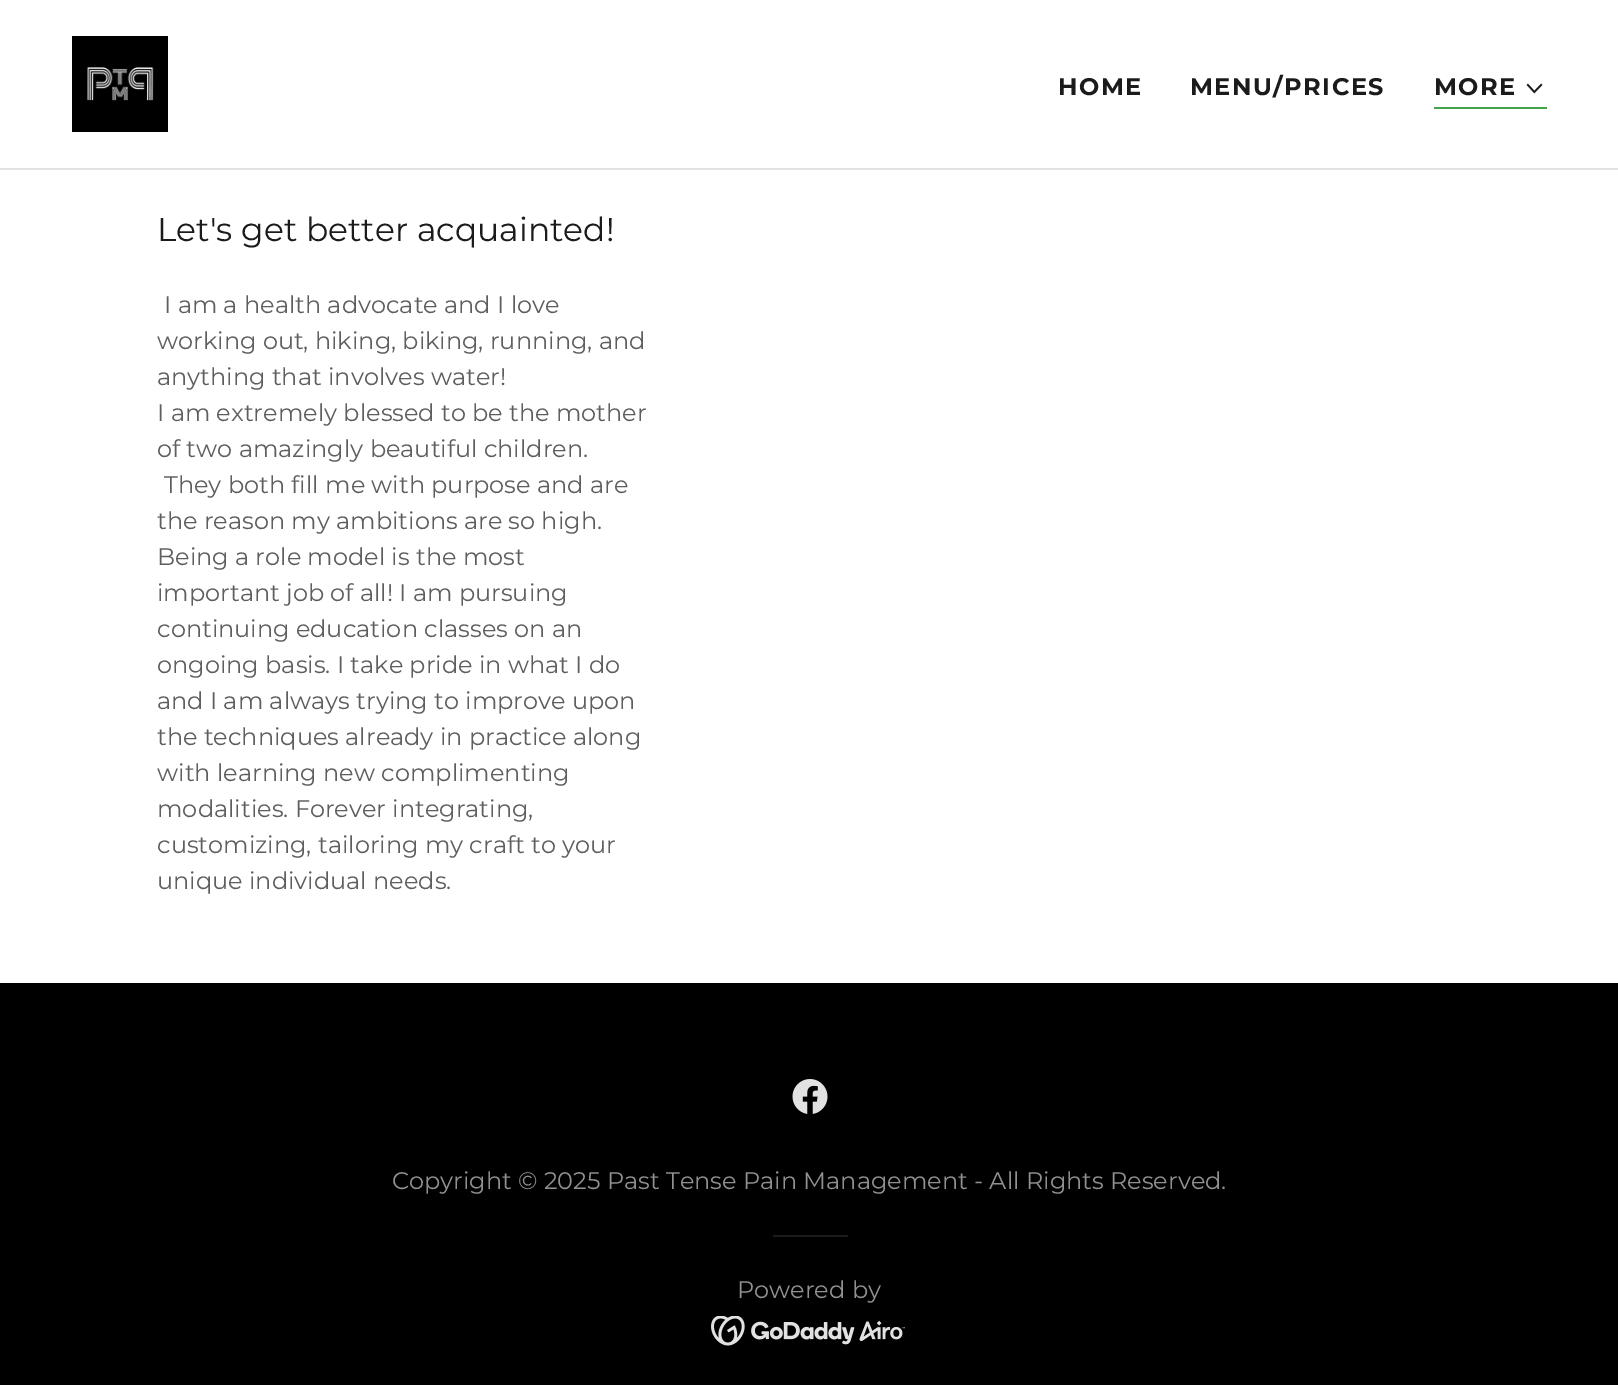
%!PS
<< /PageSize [1618 1385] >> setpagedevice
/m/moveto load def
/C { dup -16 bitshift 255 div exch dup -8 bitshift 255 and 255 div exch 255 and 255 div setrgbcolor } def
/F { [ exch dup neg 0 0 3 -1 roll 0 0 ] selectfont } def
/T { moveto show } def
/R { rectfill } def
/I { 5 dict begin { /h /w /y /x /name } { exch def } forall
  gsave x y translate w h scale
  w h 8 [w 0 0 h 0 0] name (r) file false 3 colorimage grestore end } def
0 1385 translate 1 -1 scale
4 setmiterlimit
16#000000 C
0 0 1618 1385 R
16#FFFFFF C
0 0 1618 168 R
(1.rgb) 72 36 96 96 I
/Montserrat-Bold 24 F
16#1B1B1B C
1058 95 m 1.5 0 (HOME) ashow
1190 95 m 1.5 0 (MENU/PRICES) ashow
16#46A34B C
1434 107 113 2 R
16#1B1B1B C
1434 95 m 1.5 0 (MORE) ashow
(2.rgb) 1526 83 17 11 I
16#E2E2E2 C
0 168 1618 2 R
16#FFFFFF C
0 170 1618 813 R
/Montserrat-Regular 33 F
16#1B1B1B C
(Let's get better acquainted!) 157 241 T
/Montserrat-Regular 24 F
16#5E5E5E C
(I am a health advocate and I love) 164 313 T
(working out, hiking, biking, running, and) 157 349 T
(anything that involves water!) 157 385 T
(I am extremely blessed to be the mother) 157 421 T
(of two amazingly beautiful children.) 157 457 T
(They both fill me with purpose and are) 164 493 T
(the reason my ambitions are so high.) 157 529 T
(Being a role model is the most) 157 565 T
(important job of all! I am pursuing) 157 601 T
(continuing education classes on an) 157 637 T
(ongoing basis. I take pride in what I do) 157 673 T
(and I am always trying to improve upon) 157 709 T
(the techniques already in practice along) 157 745 T
(with learning new complimenting) 157 781 T
(modalities. Forever integrating,) 157 817 T
(customizing, tailoring my craft to your) 157 853 T
(unique individual needs.) 157 889 T
(3.rgb) 792 1079 36 35 I
16#919191 C
(Copyright © 2025 Past Tense Pain Management - All Rights Reserved.) 392 1189 T
16#1B1B1B C
773 1235 75 2 R
16#919191 C
(Powered by) 737 1298 T
(4.rgb) 711 1316 194 30 I
showpage
